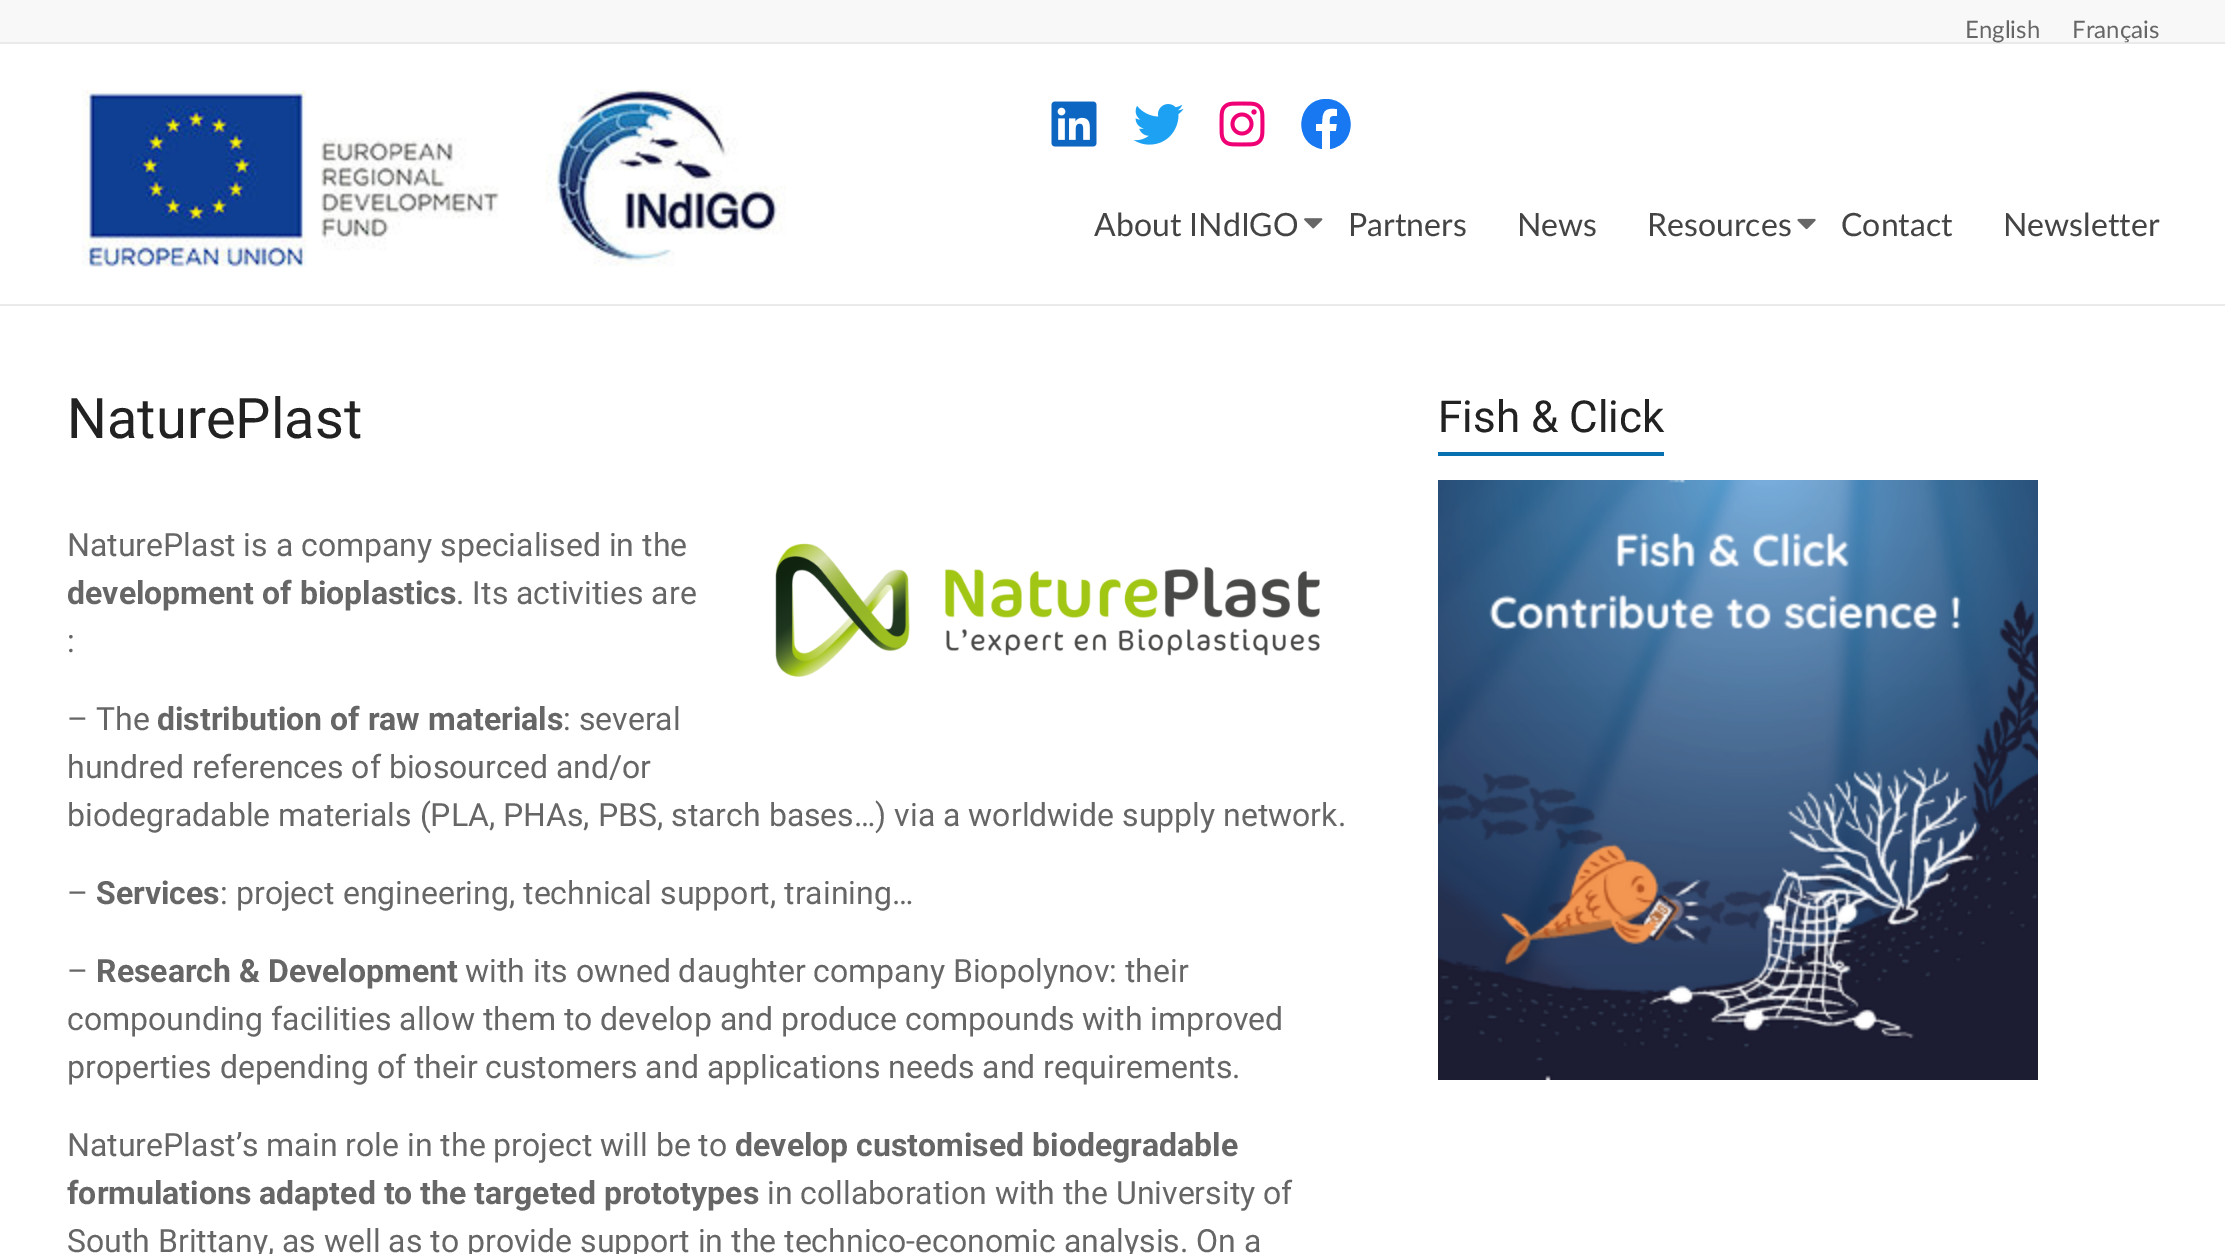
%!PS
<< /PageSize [2225 1254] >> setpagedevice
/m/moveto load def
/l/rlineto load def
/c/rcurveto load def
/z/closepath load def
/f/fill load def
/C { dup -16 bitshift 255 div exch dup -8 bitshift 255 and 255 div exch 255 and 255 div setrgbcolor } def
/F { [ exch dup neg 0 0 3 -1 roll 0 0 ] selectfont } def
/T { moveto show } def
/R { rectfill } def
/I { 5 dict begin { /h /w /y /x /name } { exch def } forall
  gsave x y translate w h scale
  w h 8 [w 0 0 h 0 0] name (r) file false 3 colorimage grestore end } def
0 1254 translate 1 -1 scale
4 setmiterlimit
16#FFFFFF C
0 0 2225 1254 R
16#F8F8F8 C
0 0 2225 42 R
16#EAEAEA C
0 42 2225 2 R
/Lato-Regular 24 F
16#666666 C
(English) 1965 38 T
(Français) 2072 38 T
16#EAEAEA C
0 304 2225 2 R
(1.rgb) 82 89 704 178 I
(2.rgb) 1051 101 46 46 I
(3.rgb) 1133 104 51 41 I
(4.rgb) 1219 101 46 46 I
16#1778F2 C
1326 99 m -30 0 -34 45 -4 50 c 0 -18 l -6 0 l 0 -7 l 6 0 l 0 -12 2 -17 15 -15 c 0 7 l -8 0 -7 1 -7 8 c 7 0 l -1 7 l -6 0 l 0 18 l 30 -5 26 -50 -4 -50 c z f
/Lato-Regular 32 F
16#444444 C
(About INdIGO) 1094 236 T
(5.rgb) 1304 218 19 11 I
(Partners) 1348 236 T
(News) 1517 236 T
(Resources) 1647 236 T
(6.rgb) 1797 218 19 12 I
(Contact) 1841 236 T
(Newsletter) 2003 236 T
/Roboto-Regular 56 F
16#222222 C
(NaturePlast) 67 438 T
/Roboto-Regular 32 F
16#666666 C
(NaturePlast is a company specialised in the) 67 556 T
/Roboto-Bold 32 F
(development of bioplastics) 67 604 T
/Roboto-Regular 32 F
(. Its activities are) 456 604 T
(:) 67 652 T
(7.rgb) 775 543 545 134 I
(– The) 67 730 T
/Roboto-Bold 32 F
(distribution of raw materials) 157 730 T
/Roboto-Regular 32 F
(: several) 563 730 T
(hundred references of biosourced and/or) 67 778 T
(biodegradable materials \(PLA, PHAs, PBS, starch bases…\) via a worldwide supply network.) 67 826 T
(–) 67 904 T
/Roboto-Bold 32 F
(Services) 96 904 T
/Roboto-Regular 32 F
(: project engineering, technical support, training…) 220 904 T
(–) 67 982 T
/Roboto-Bold 32 F
(Research & Development) 96 982 T
/Roboto-Regular 32 F
(with its owned daughter company Biopolynov: their) 465 982 T
(compounding facilities allow them to develop and produce compounds with improved) 67 1030 T
(properties depending of their customers and applications needs and requirements.) 67 1078 T
(NaturePlast’s main role in the project will be to) 67 1156 T
/Roboto-Bold 32 F
(develop customised biodegradable) 735 1156 T
(formulations adapted to the targeted prototypes) 67 1204 T
/Roboto-Regular 32 F
(in collaboration with the University of) 767 1204 T
(South Brittany, as well as to provide support in the technico-economic analysis. On a) 67 1252 T
/Roboto-Regular 44 F
16#222222 C
(Fish & Click) 1438 432 T
16#0670B0 C
1438 452 226 4 R
(8.rgb) 1438 480 600 600 I
showpage
